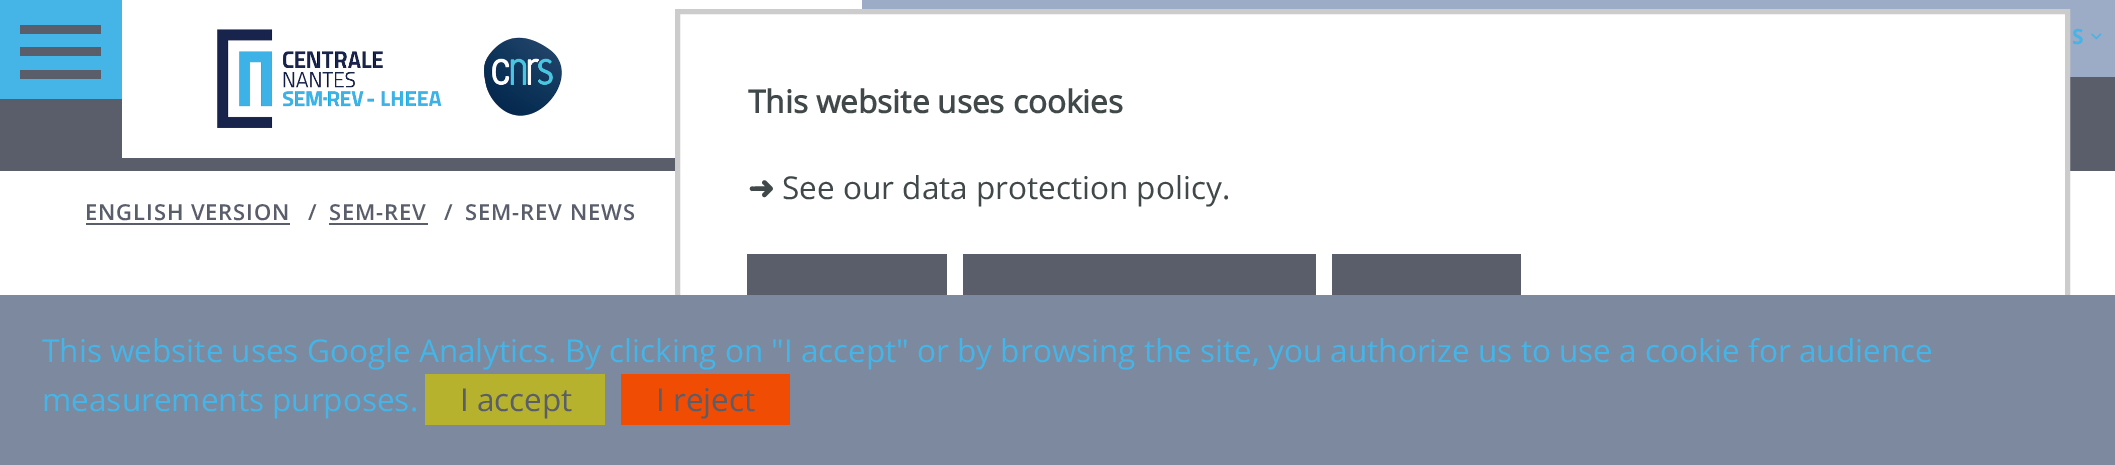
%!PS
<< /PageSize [2115 465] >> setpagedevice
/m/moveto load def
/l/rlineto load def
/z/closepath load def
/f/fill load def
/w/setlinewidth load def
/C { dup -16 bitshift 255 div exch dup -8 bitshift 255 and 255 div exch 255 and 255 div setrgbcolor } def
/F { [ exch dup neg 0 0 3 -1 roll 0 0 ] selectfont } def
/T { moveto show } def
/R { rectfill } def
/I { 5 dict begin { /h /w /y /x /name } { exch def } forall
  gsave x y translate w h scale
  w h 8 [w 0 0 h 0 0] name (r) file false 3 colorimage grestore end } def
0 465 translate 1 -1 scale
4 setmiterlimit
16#FFFFFF C
0 0 2115 465 R
16#5A5E6B C
0 77 2115 94 R
16#45B4E7 C
0 0 122 99 R
16#5A5E6B C
20 25 m 81 0 l 0 9 l -81 0 l z 20 56 m 0 -9 l 81 0 l 0 9 l z 20 79 m 0 -9 l 81 0 l 0 9 l z f
16#FFFFFF C
122 77 740 81 R
(1.rgb) 217 29 345 99 I
16#9DACC6 C
862 0 1253 77 R
/OpenSans-Bold 21 F
16#45B4E7 C
(S) 2072 44 T
(2.rgb) 2091 33 11 7 I
16#FFFFFF C
680 14 1385 157 R
16#CCCCCC C
5 w
677.5 11.5 1390 434 rectstroke
16#7D899E C
0 295 2115 170 R
/OpenSans-Regular 31.5 F
16#45B4E7 C
(This website uses Google Analytics. By clicking on "I accept" or by browsing the site, you authorize us to use a cookie for audience) 42 362 T
(measurements purposes.) 42 411 T
16#B7B22E C
425 374 180 51 R
16#5A5E6B C
(I accept) 460 411 T
16#F04C04 C
621 374 169 51 R
16#5A5E6B C
(I reject) 656 411 T
/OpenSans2-Bold 31.5 F
16#404849 C
(This website uses cookies) 748 113 T
/DejaVuSans-Bold 31.5 F
(➜) 748 199 T
/OpenSans-Regular 31.5 F
(See our data protection policy.) 782 199 T
16#5A5E6B C
747 254 200 41 R
963 254 353 41 R
1332 254 189 41 R
/OpenSans-SemiBold 22 F
85 220 m .9 0 (ENGLISH VERSION) ashow
86 223 204 2 R
308 220 m .9 0 (/) ashow
329 220 m .9 0 (SEM-REV) ashow
329 223 99 2 R
444 220 m .9 0 (/) ashow
465 220 m .9 0 (SEM-REV NEWS) ashow
showpage
